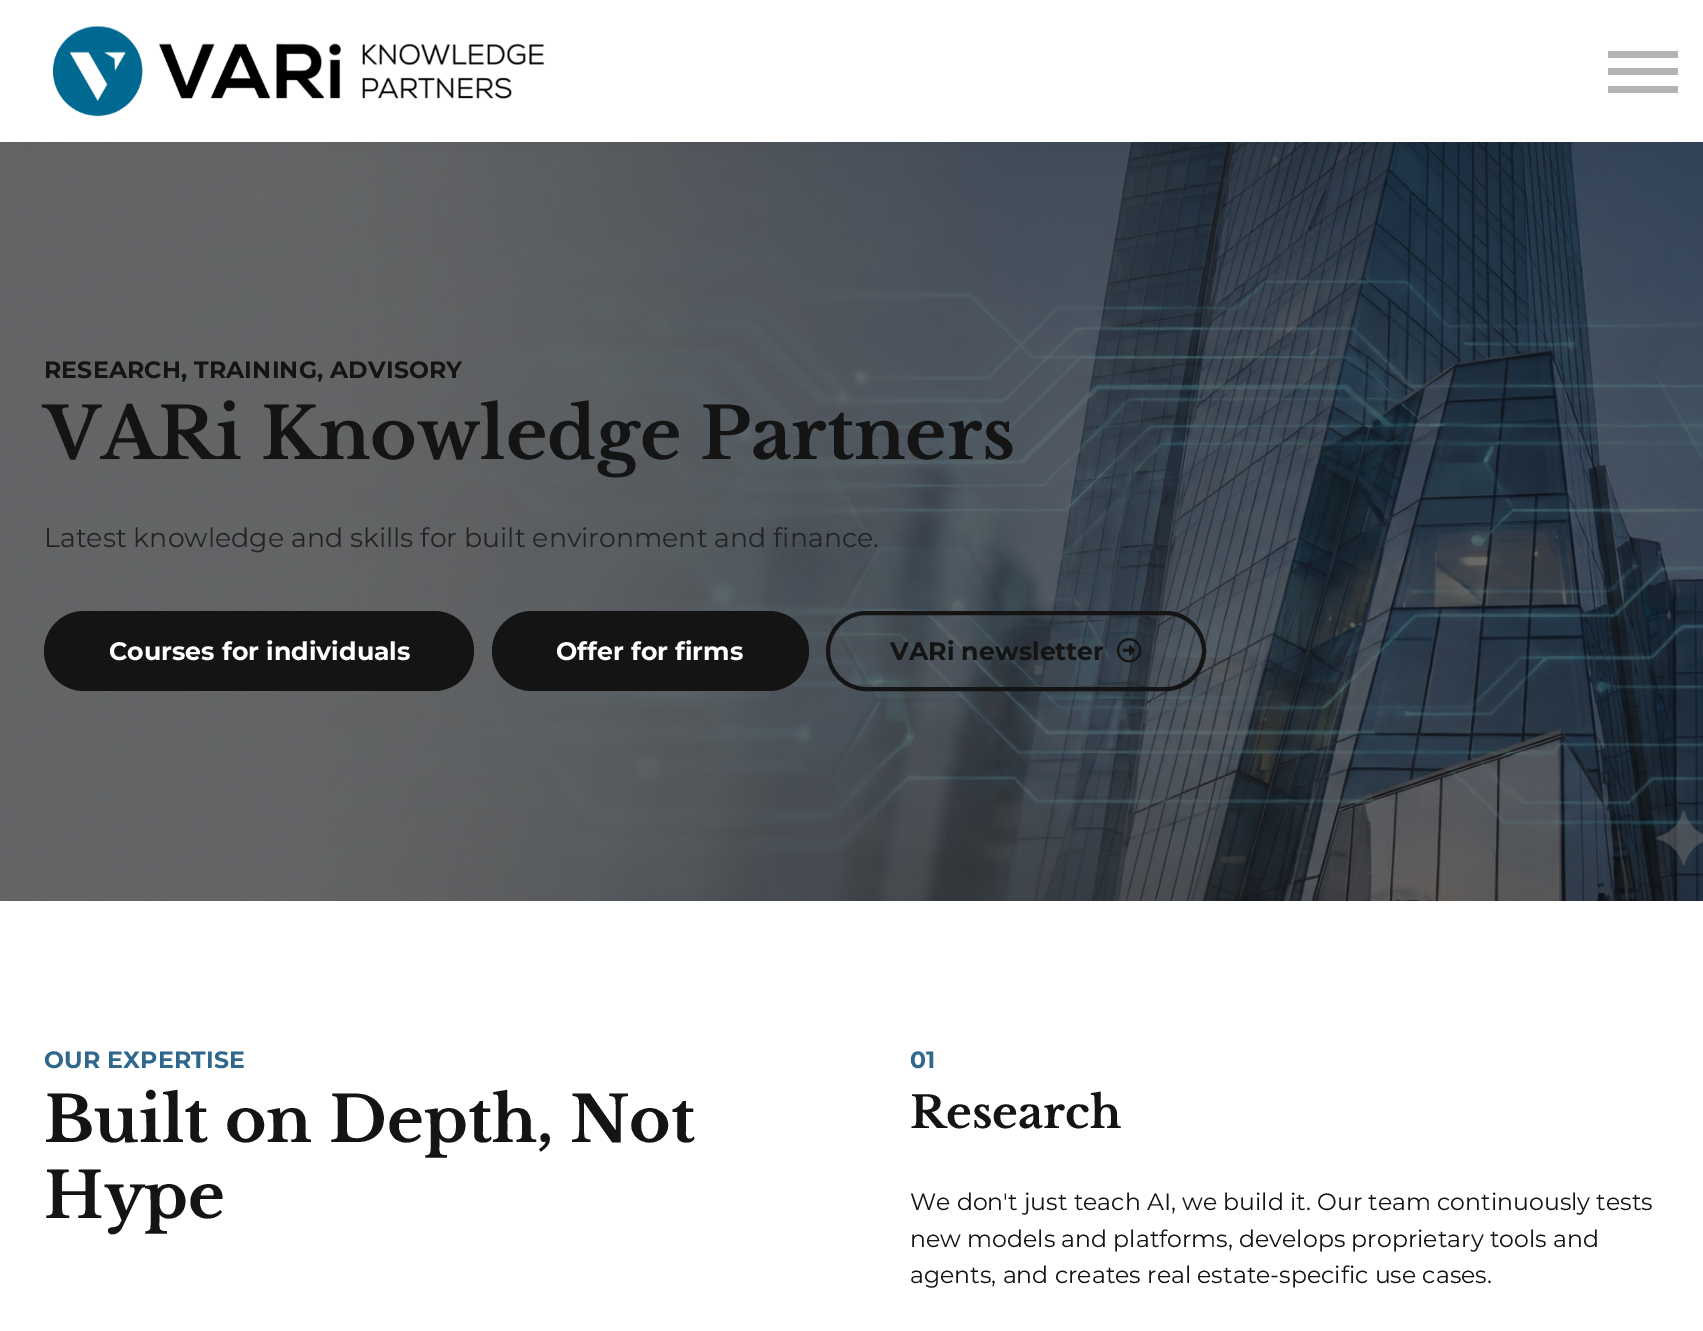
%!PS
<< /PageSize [1703 1331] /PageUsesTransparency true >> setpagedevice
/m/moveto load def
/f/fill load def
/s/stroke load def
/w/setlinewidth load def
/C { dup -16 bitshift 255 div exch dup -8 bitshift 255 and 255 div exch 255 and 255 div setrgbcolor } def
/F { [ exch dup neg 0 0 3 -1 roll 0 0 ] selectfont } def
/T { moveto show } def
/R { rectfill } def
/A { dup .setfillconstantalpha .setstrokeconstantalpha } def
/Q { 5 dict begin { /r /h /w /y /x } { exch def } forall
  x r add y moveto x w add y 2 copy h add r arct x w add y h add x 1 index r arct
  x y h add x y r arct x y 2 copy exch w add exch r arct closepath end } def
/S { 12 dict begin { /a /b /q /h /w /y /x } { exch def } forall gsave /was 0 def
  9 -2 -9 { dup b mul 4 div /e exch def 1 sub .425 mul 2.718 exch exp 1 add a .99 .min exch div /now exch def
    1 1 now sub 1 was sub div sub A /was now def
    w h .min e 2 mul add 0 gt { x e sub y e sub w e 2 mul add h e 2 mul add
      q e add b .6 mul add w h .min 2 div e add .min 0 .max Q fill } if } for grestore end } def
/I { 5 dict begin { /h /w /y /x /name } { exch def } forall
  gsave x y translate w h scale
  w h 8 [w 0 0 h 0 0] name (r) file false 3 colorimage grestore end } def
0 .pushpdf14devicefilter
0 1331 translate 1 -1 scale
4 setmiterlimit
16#FFFFFF C
0 0 1703 1331 R
(2.rgb) 0 142 1703 759 I
16#000000 C
0 0 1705 142 0 13 .05 S
16#FFFFFF C
0 0 1703 142 R
(1.rgb) 52 25 493 92 I
16#B4B4B4 C
1608 86 70 7 R
1608 51 70 7 R
1608 68 70 7 R
/Montserrat-Bold 23.6 F
16#141414 C
44 378 m .15 0 (RESEARCH, TRAINING, ADVISORY) ashow
/LibreBaskerville-Bold 70.9 F
(VARi Knowledge Partners) 44 459 T
/Montserrat-Regular 26.75 F
16#222324 C
(Latest knowledge and skills for built environment and finance.) 44 547 T
16#141414 C
44 611 430 80 40 Q f
/Montserrat-Bold 25.25 F
16#FFFFFF C
(Courses for individuals) 109 660 T
16#141414 C
492 611 317 80 40 Q f
16#FFFFFF C
(Offer for firms) 556 660 T
16#141414 C
4 w
828 613 376 76 38 Q s
(VARi newsletter) 890 660 T
(3.rgb) 1116 638 26 25 I
/Montserrat-Bold 23.6 F
16#30688D C
44 1068 m .15 0 (OUR EXPERTISE) ashow
/LibreBaskerville-Bold 63 F
16#141414 C
(Built on Depth, Not) 44 1142 T
(Hype) 44 1218 T
/Montserrat-Bold 23.6 F
16#30688D C
910 1068 m .15 0 (01) ashow
/LibreBaskerville-Bold 44 F
16#141414 C
(Research) 910 1128 T
/Montserrat-Regular 23.6 F
(We don't just teach AI, we build it. Our team continuously tests) 910 1210 T
(new models and platforms, develops proprietary tools and) 910 1247 T
(agents, and creates real estate-specific use cases.) 910 1283 T
.poppdf14devicefilter showpage
